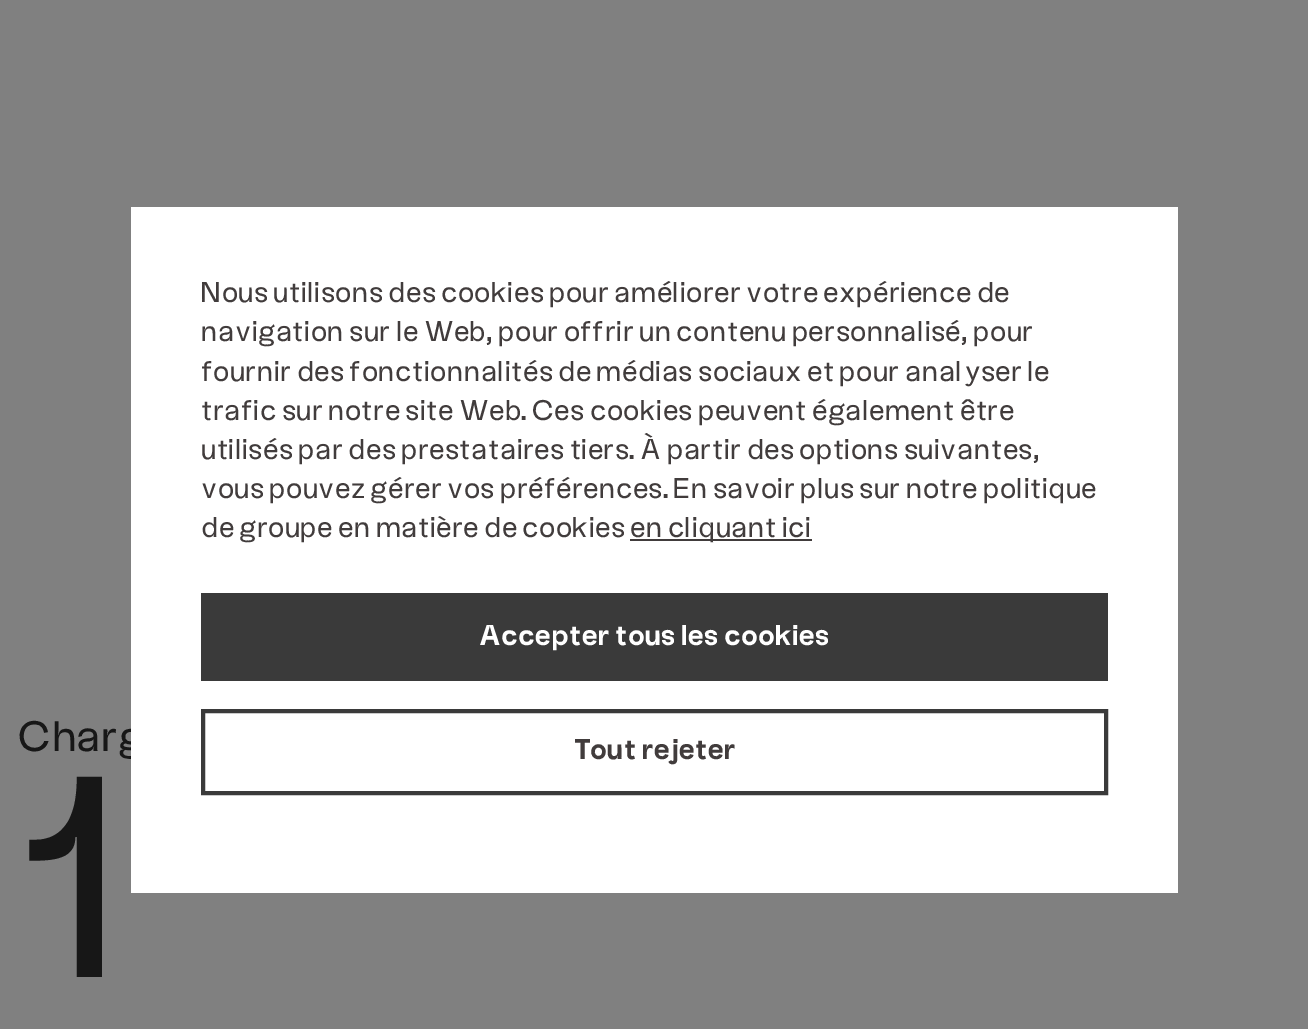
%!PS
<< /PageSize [1308 1029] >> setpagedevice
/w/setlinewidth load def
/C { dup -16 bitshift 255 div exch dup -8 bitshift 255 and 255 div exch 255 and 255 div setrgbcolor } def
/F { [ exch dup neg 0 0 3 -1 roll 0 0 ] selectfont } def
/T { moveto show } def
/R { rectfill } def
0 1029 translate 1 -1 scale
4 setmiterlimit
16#808080 C
0 0 1308 1029 R
/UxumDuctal-Regular 42 F
16#171717 C
(Charg) 18 751 T
16#FFFFFF C
131 207 1047 686 R
/UxumDuctal-Regular 28 F
16#413C3C C
(Nous utilisons des cookies pour améliorer votre expérience de) 201 302 T
(navigation sur le Web, pour offrir un contenu personnalisé, pour) 201 341 T
(fournir des fonctionnalités de médias sociaux et pour analyser le) 201 381 T
(trafic sur notre site Web. Ces cookies peuvent également être) 201 420 T
(utilisés par des prestataires tiers. À partir des options suivantes,) 201 459 T
(vous pouvez gérer vos préférences. En savoir plus sur notre politique) 201 498 T
(de groupe en matière de cookies) 201 537 T
630 539 182 2 R
(en cliquant ici) 630 537 T
16#3A3A3A C
201 593 907 88 R
/UxumDuctal-Bold 28 F
16#FFFFFF C
(Accepter tous les cookies) 479 645 T
16#3A3A3A C
4 w
203 711 903 82 rectstroke
16#413C3C C
(Tout rejeter) 574 759 T
/UxumDuctal-Regular 280 F
16#171717 C
(1) 18 977 T
showpage
